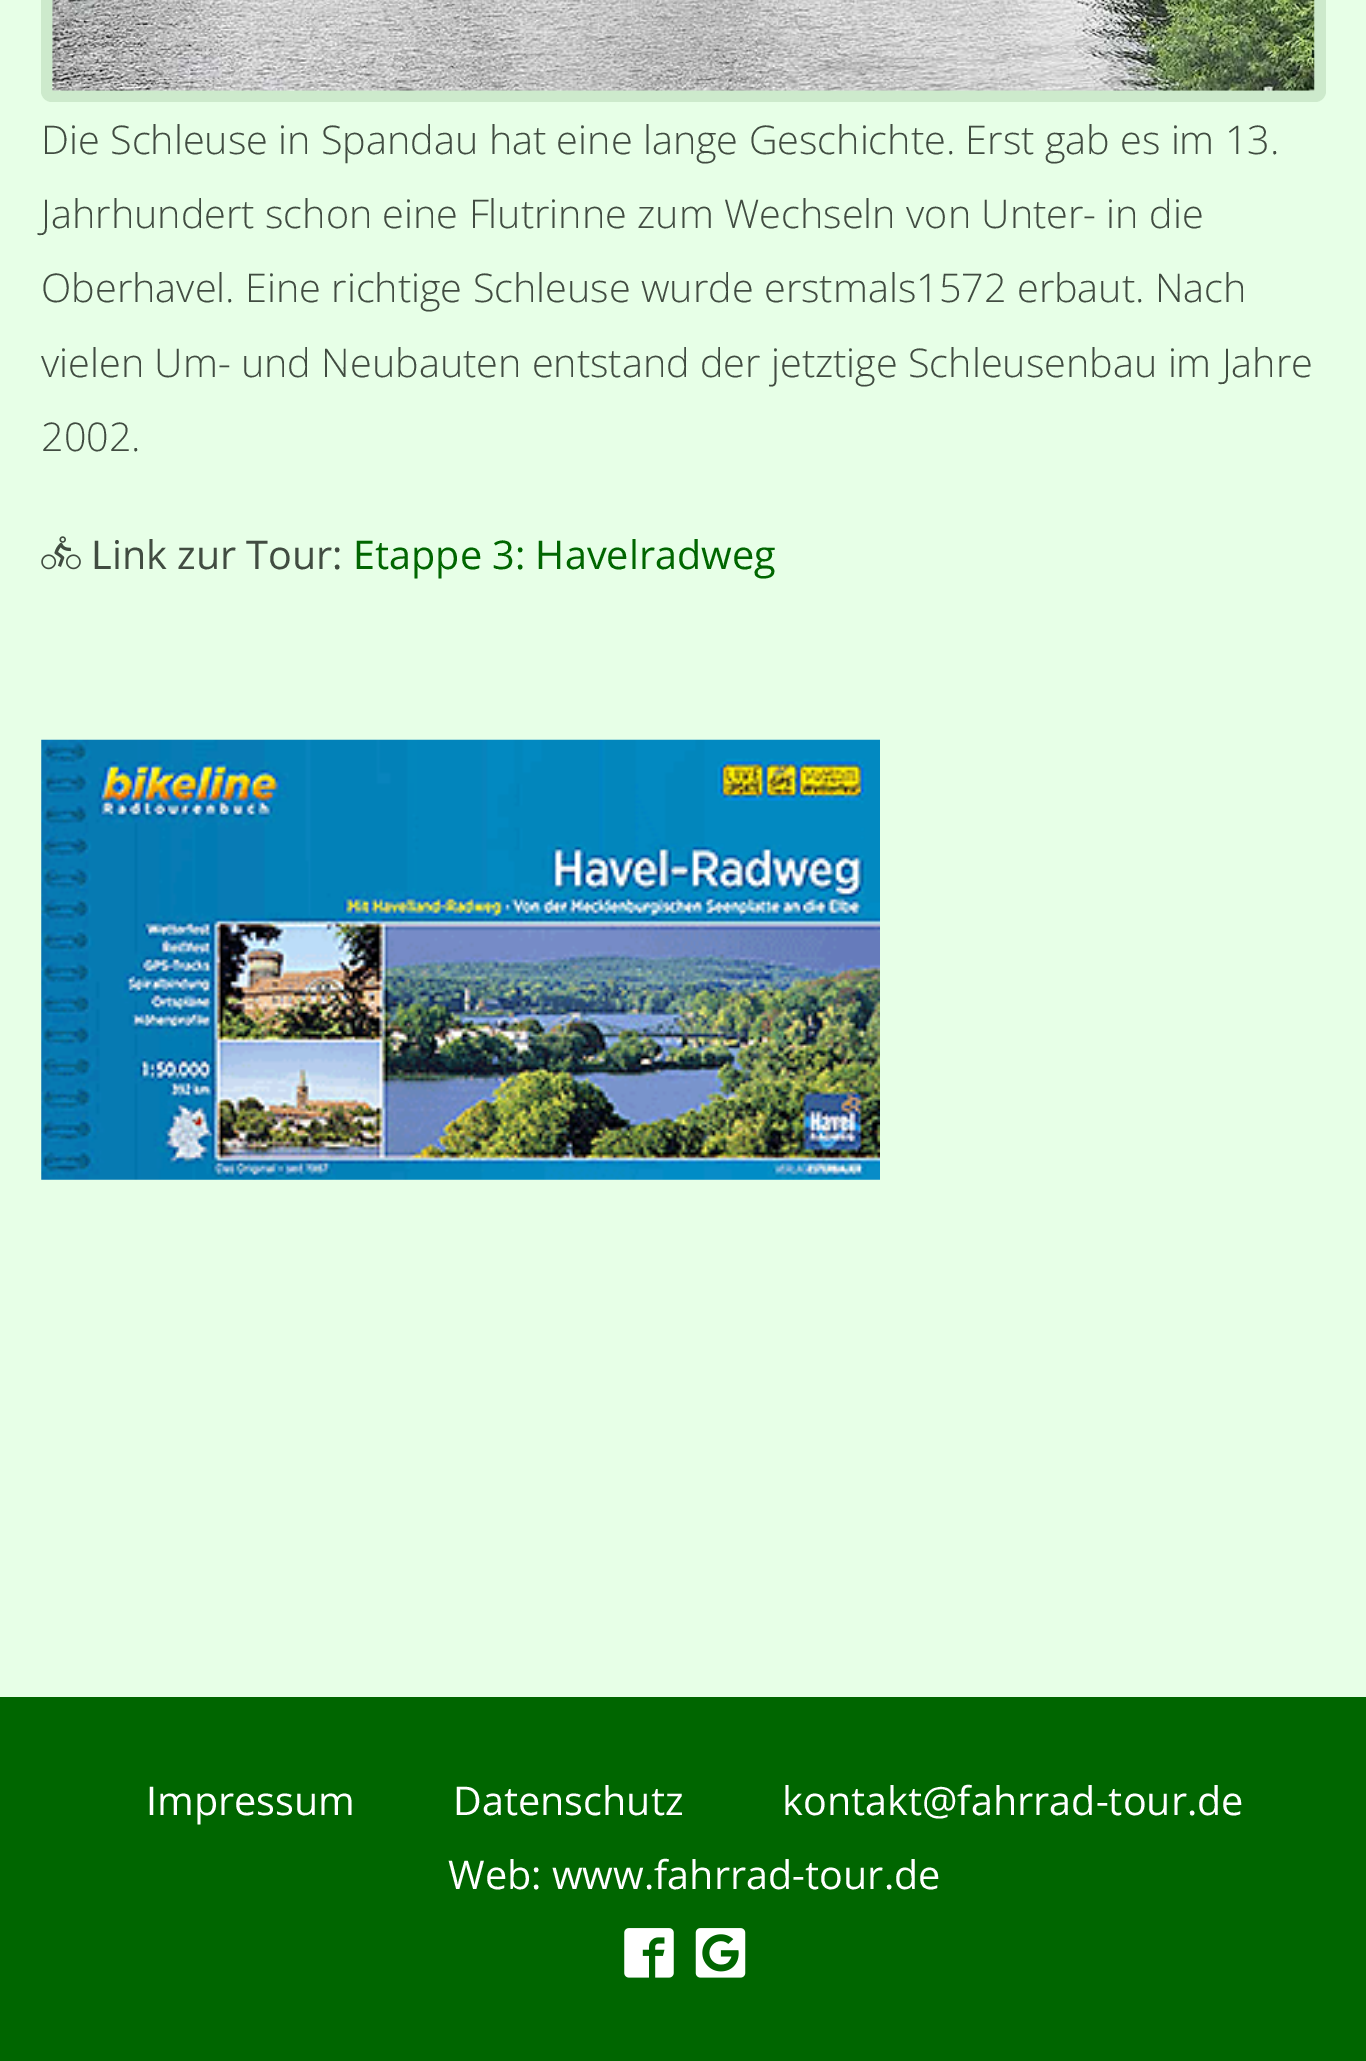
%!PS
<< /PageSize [1366 2061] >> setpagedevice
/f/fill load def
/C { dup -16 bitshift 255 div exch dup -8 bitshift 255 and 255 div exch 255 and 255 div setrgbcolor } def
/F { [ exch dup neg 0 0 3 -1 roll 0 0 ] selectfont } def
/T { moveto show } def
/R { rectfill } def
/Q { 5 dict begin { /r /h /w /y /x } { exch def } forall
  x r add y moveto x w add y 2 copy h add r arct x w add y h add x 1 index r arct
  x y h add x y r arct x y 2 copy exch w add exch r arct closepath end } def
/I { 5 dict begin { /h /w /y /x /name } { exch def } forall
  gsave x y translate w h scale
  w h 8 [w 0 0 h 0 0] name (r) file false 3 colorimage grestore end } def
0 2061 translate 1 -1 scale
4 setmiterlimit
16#E7FFE7 C
0 0 1366 2061 R
16#CDEACC C
41 -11 1285 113 11 Q f
(1.rgb) 52 0 1263 91 I
/OpenSans-Light 39.6 F
16#414C41 C
(Die Schleuse in Spandau hat eine lange Geschichte. Erst gab es im 13.) 41 154 T
(Jahrhundert schon eine Flutrinne zum Wechseln von Unter- in die) 41 228 T
(Oberhavel. Eine richtige Schleuse wurde erstmals1572 erbaut. Nach) 41 302 T
(vielen Um- und Neubauten entstand der jetztige Schleusenbau im Jahre) 41 377 T
(2002.) 41 451 T
(2.rgb) 41 536 40 34 I
/OpenSans-Regular 39.6 F
(Link zur Tour:) 91 569 T
16#006600 C
(Etappe 3: Havelradweg) 353 569 T
(3.rgb) 41 739 839 441 I
0 1697 1366 364 R
16#FFFFFF C
(Impressum) 146 1815 T
(Datenschutz) 453 1815 T
(kontakt@fahrrad-tour.de) 782 1815 T
(Web: www.fahrrad-tour.de) 448 1889 T
(4.rgb) 624 1928 50 50 I
(5.rgb) 695 1928 51 50 I
showpage
